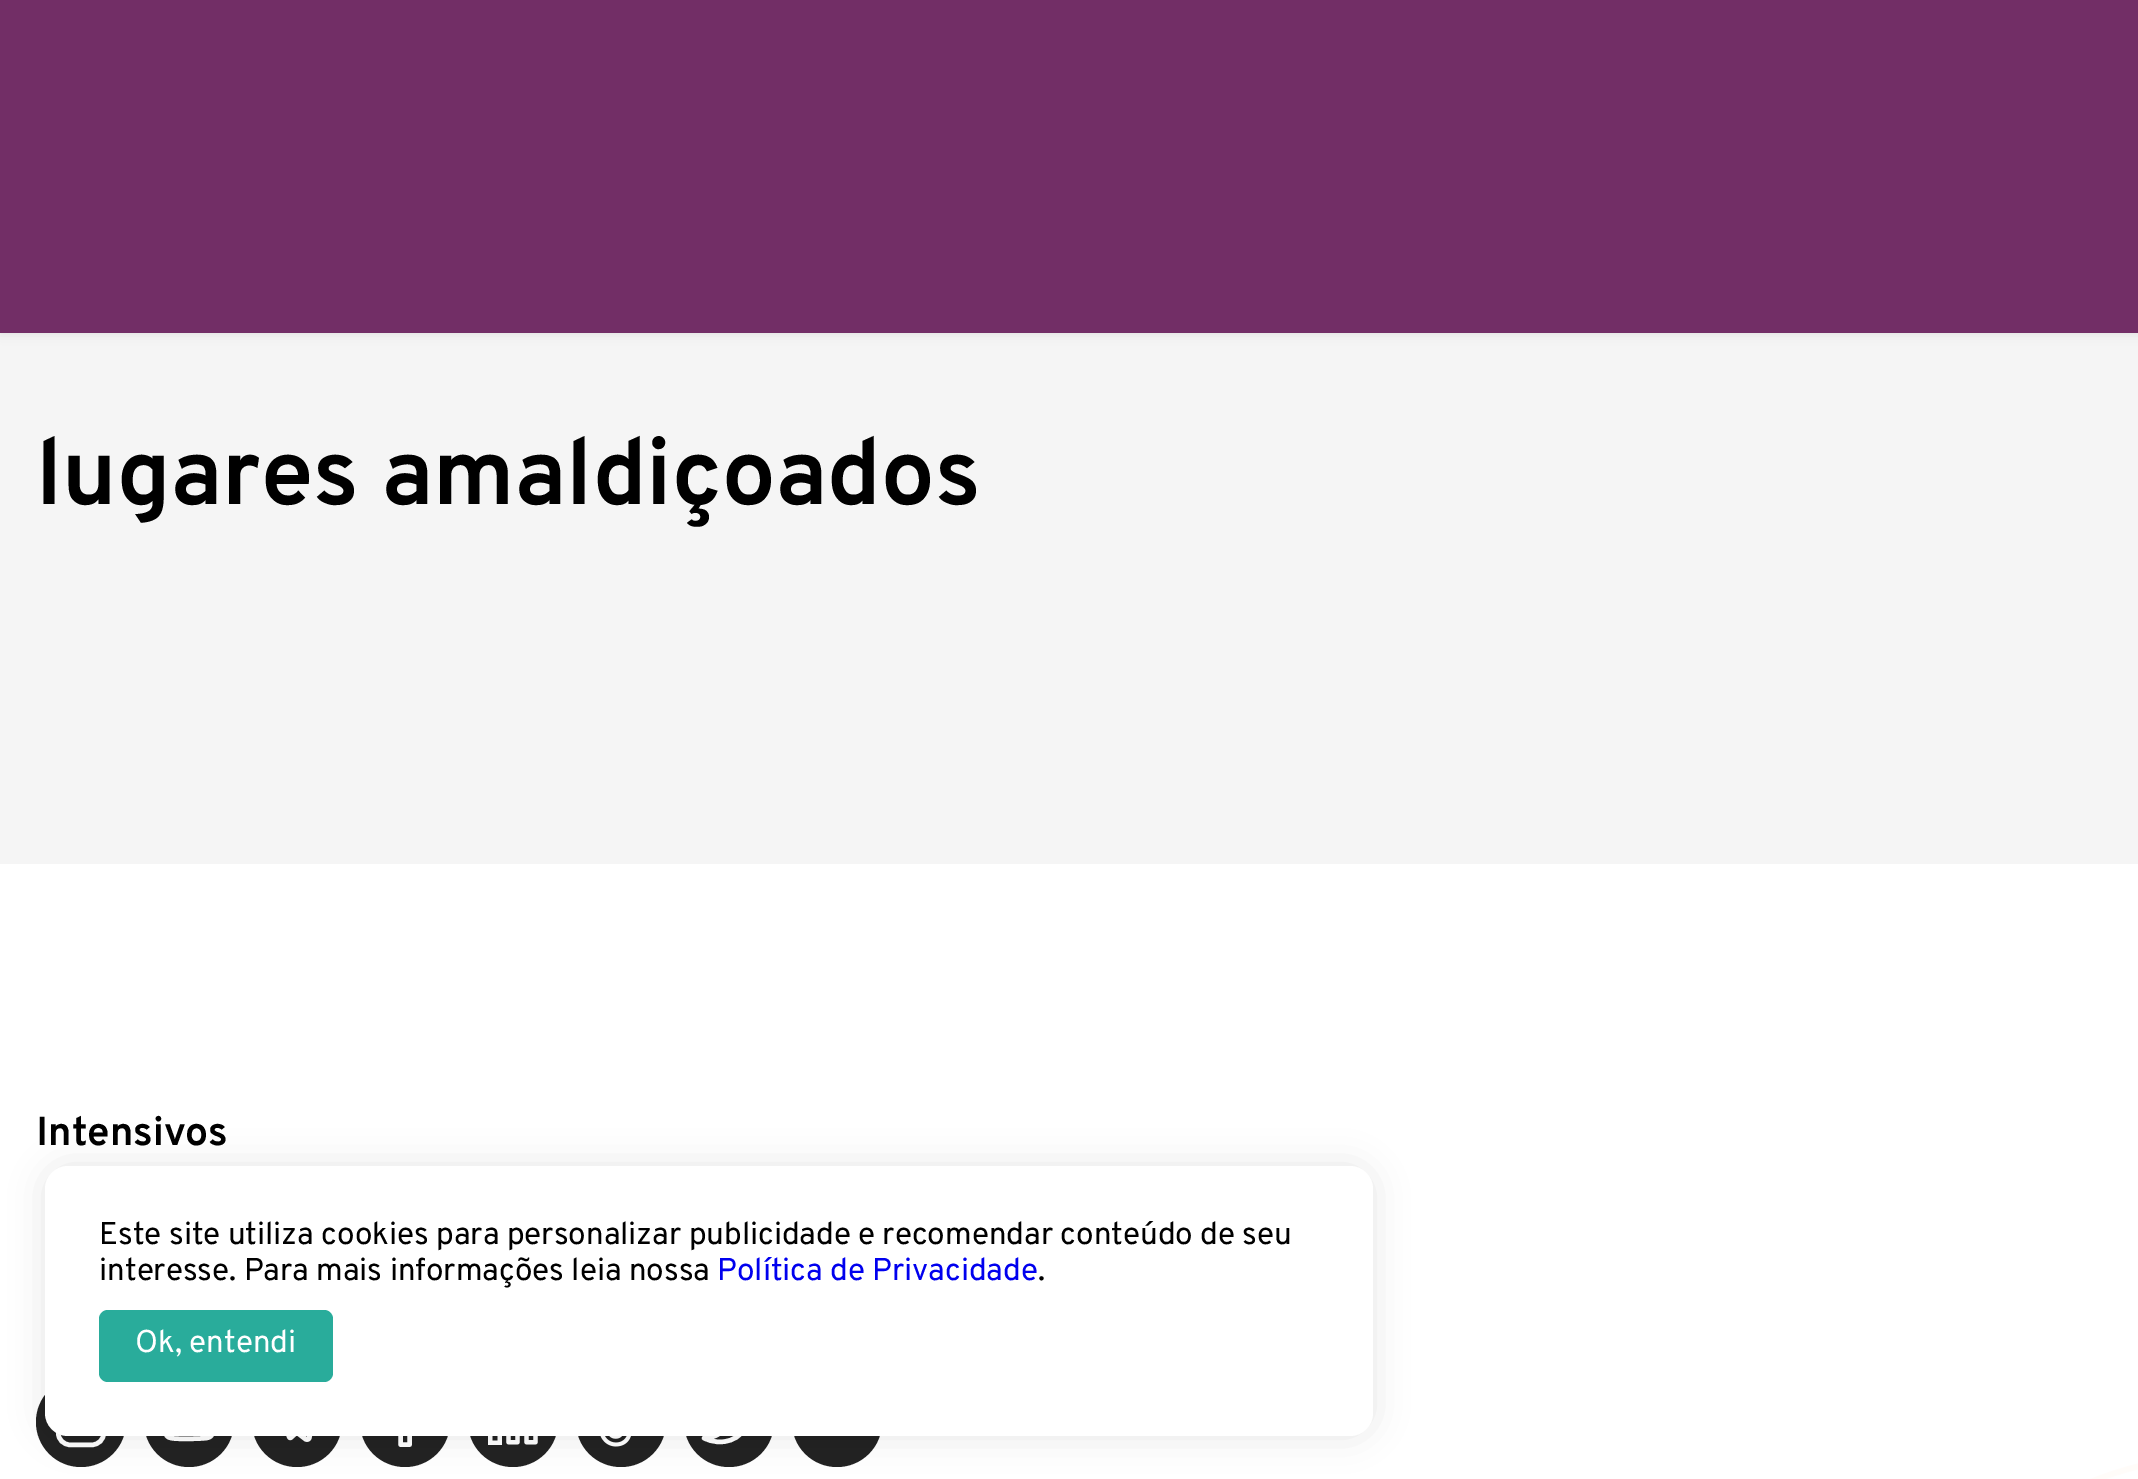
%!PS
<< /PageSize [2138 1479] /PageUsesTransparency true >> setpagedevice
/m/moveto load def
/l/rlineto load def
/c/rcurveto load def
/z/closepath load def
/f/fill load def
/s/stroke load def
/w/setlinewidth load def
/C { dup -16 bitshift 255 div exch dup -8 bitshift 255 and 255 div exch 255 and 255 div setrgbcolor } def
/F { [ exch dup neg 0 0 3 -1 roll 0 0 ] selectfont } def
/T { moveto show } def
/R { rectfill } def
/A { dup .setfillconstantalpha .setstrokeconstantalpha } def
/O { newpath 0 360 arc closepath } def
/Q { 5 dict begin { /r /h /w /y /x } { exch def } forall
  x r add y moveto x w add y 2 copy h add r arct x w add y h add x 1 index r arct
  x y h add x y r arct x y 2 copy exch w add exch r arct closepath end } def
/S { 12 dict begin { /a /b /q /h /w /y /x } { exch def } forall gsave /was 0 def
  9 -2 -9 { dup b mul 4 div /e exch def 1 sub .425 mul 2.718 exch exp 1 add a .99 .min exch div /now exch def
    1 1 now sub 1 was sub div sub A /was now def
    w h .min e 2 mul add 0 gt { x e sub y e sub w e 2 mul add h e 2 mul add
      q e add b .6 mul add w h .min 2 div e add .min 0 .max Q fill } if } for grestore end } def
/I { 5 dict begin { /h /w /y /x /name } { exch def } forall
  gsave x y translate w h scale
  w h 8 [w 0 0 h 0 0] name (r) file false 3 colorimage grestore end } def
0 .pushpdf14devicefilter
0 1479 translate 1 -1 scale
4 setmiterlimit
16#F5F5F5 C
0 0 2138 1479 R
16#FFFFFF C
0 864 2138 615 R
(1.rgb) 2090 1463 48 16 I
16#000000 C
0 -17 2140 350 0 5.5 .1 S
16#722E66 C
0 0 2138 333 R
/Overpass-Bold 94.5 F
16#000000 C
(lugares amaldiçoados) 36 504 T
/Overpass-Bold 40.5 F
(Intensivos) 36 1145 T
16#222222 C
81 1422 45 O f
16#FFFFFF C
4.5 w
58.25 1399.25 45.5 45.5 11.75 Q s
16#222222 C
189 1422 45 O f
16#FFFFFF C
1 setlinecap
1 setlinejoin
212.5 1409.5 m -.5 -2 -1.5 -3.5 -3.5 -4.5 c -5 -2 -25 -1 -31.5 -.5 c -3.5 0 -8 -.5 -10.5 2 c -4 4 -4 26.5 .5 30 c 3.5 3 14.5 2 19 2.5 c 14 -.5 l 10 -.5 12 -1 13 -11 c .5 -6 .5 -12 -1 -18 c z s
16#222222 C
297 1422 45 O f
(2.rgb) 286 1436 27 6 I
405 1422 45 O f
16#FFFFFF C
418.5 1399.5 m -15.5 0 -18 2.5 -18 18 c -6.5 0 l 0 9 l 6.5 0 l 0 18 l 9 0 l 0 -18 l 6.5 0 l 2.5 -9 l -9 0 l 0 -10 -1 -9 9 -9 c z s
16#222222 C
513 1422 45 O f
(3.rgb) 488 1436 50 9 I
621 1422 45 O f
(4.rgb) 600 1436 31 11 I
729 1422 45 O f
16#FFFFFF C
754 1402 m -7.5 3 l -4.5 -5 -13.5 -4 -16.5 2.5 c -1 2 -1 4.5 -1 6.5 c -8 .5 -15.5 -3.5 -20 -10 c 0 0 -9 20 11 29 c -4.5 3.5 -10 5 -16 5 c 17 9 39 2.5 44 -17 c 1 -11 l 2.5 -2.5 4 -5 5 -8 c z s
16#222222 C
837 1422 45 O f
16#000000 C
45 1166 1328 270 23 17 .1 S
16#FFFFFF C
45 1166 1328 270 23 Q f
/Overpass-Regular 31.5 F
16#000000 C
(Este site utiliza cookies para personalizar publicidade e recomendar conteúdo de seu) 99 1244 T
(interesse. Para mais informações leia nossa) 99 1280 T
16#0000EE C
(Política de Privacidade) 717 1280 T
16#000000 C
(.) 1038 1280 T
16#29AC9B C
99 1310 234 72 9 Q f
16#FFFFFF C
(Ok, entendi) 135 1352 T
.poppdf14devicefilter showpage
